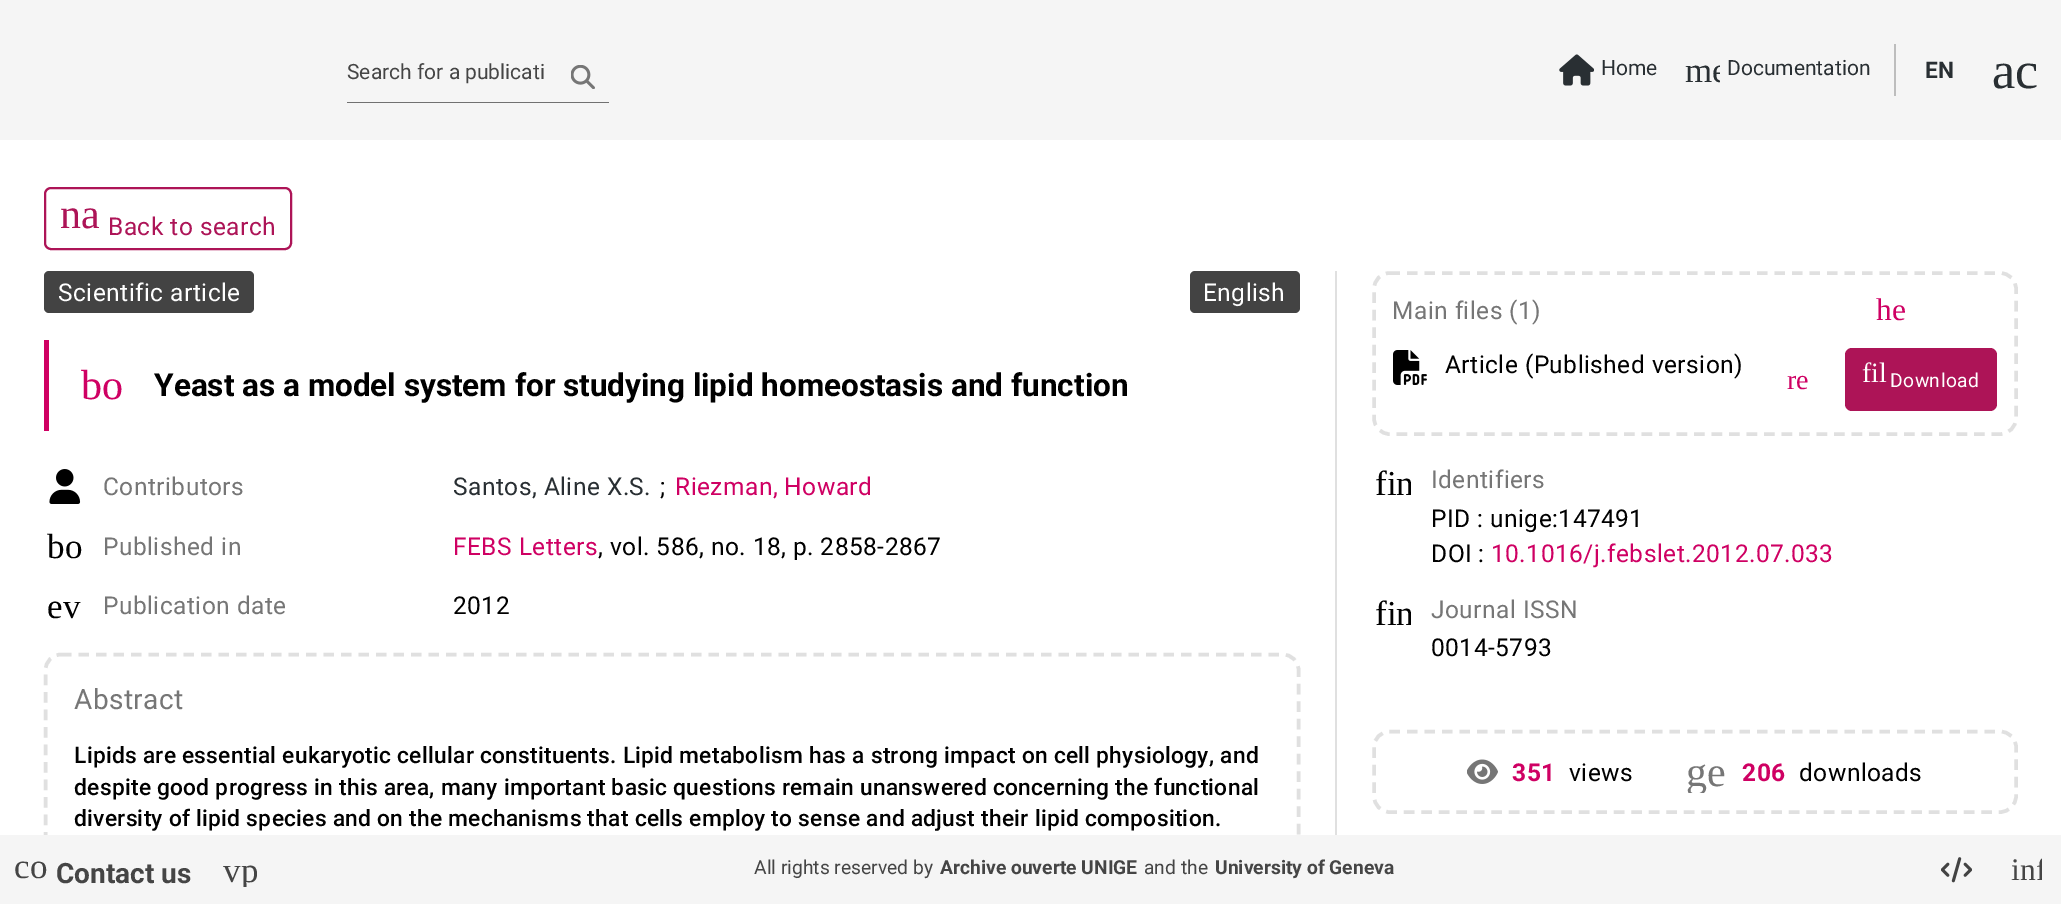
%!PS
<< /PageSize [2061 904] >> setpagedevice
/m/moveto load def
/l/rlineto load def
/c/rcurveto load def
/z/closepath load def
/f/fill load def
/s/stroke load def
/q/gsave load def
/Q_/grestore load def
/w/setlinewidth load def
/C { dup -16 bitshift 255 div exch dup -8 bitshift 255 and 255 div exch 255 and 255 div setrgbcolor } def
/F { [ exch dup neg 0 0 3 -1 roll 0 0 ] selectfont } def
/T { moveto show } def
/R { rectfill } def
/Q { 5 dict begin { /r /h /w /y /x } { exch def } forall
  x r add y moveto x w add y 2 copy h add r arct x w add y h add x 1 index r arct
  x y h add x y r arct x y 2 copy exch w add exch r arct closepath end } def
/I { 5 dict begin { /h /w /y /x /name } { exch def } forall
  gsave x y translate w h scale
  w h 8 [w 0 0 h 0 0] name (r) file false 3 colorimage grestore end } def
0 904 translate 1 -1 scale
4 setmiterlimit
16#FFFFFF C
0 0 2061 904 R
16#F5F5F5 C
0 0 2061 140 R
/Roboto-Regular 21 F
16#454545 C
(Search for a publicati) 347 79 T
(1.rgb) 571 65 24 24 I
16#717171 C
347 102 262 1 R
(2.rgb) 1559 54 35 32 I
16#292F33 C
(Home) 1601 75 T
q
1685 53 35 35 rectclip
/LiberationSerif-Regular 35 F
(me) 1685 82 T
Q_
(Documentation) 1727 75 T
16#BDBDBD C
1894 44 2 52 R
/Roboto-Bold 22.75 F
16#292F33 C
(EN) 1925 78 T
/LiberationSerif-Regular 52 F
(ac) 1992 88 T
16#AD1457 C
2 w
45 188 246 61 6 Q s
/LiberationSerif-Regular 42 F
(na) 60 228 T
/Roboto-Regular 24.5 F
108 235 m .45 0 (Back to search) ashow
16#E0E0E0 C
1335 271 2 564 R
16#434343 C
44 271 210 42 5 Q f
16#FFFFFF C
58 301 m .45 0 (Scientific article) ashow
16#434343 C
1190 271 110 42 5 Q f
16#FFFFFF C
1203 301 m .45 0 (English) ashow
16#CF0063 C
44 340 5 91 R
/LiberationSerif-Regular 42 F
(bo) 81 399 T
/Roboto-Bold 31.5 F
16#000000 C
(Yeast as a model system for studying lipid homeostasis and function) 154 396 T
(3.rgb) 49 469 32 35 I
/Roboto-Regular 24.5 F
16#767676 C
103 495 m .45 0 (Contributors) ashow
16#292F33 C
453 495 m .45 0 (Santos, Aline X.S.) ashow
16#000000 C
660 495 m .45 0 (;) ashow
16#CF0063 C
675 495 m .45 0 (Riezman, Howard) ashow
/LiberationSerif-Regular 35 F
16#000000 C
(bo) 47 558 T
/Roboto-Regular 24.5 F
16#767676 C
103 555 m .45 0 (Published in) ashow
16#CF0063 C
453 555 m .45 0 (FEBS Letters) ashow
16#000000 C
598 555 m .45 0 (, vol. 586, no. 18, p. 2858-2867) ashow
/LiberationSerif-Regular 35 F
(ev) 47 618 T
/Roboto-Regular 24.5 F
16#767676 C
103 614 m .45 0 (Publication date) ashow
16#000000 C
453 614 m .45 0 (2012) ashow
16#E0E0E0 C
3.5 w
[10.5 7] 0 setdash
61 654.5 m 1222 0 l 8.5 0 15.5 7 15.5 15.5 c 0 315 l 0 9 -7 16 -15.5 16 c -1222 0 l -8.5 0 -15.5 -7 -15.5 -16 c 0 -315 l 0 -8.5 7 -15.5 15.5 -15.5 c z s
/Roboto-Regular 28 F
16#767676 C
74 709 m .45 0 (Abstract) ashow
/Roboto-Medium 22.75 F
16#000000 C
74 763 m .28 0 (Lipids are essential eukaryotic cellular constituents. Lipid metabolism has a strong impact on cell physiology, and) ashow
74 795 m .28 0 (despite good progress in this area, many important basic questions remain unanswered concerning the functional) ashow
74 826 m .28 0 (diversity of lipid species and on the mechanisms that cells employ to sense and adjust their lipid composition.) ashow
16#E0E0E0 C
1389.5 273 m 610.5 0 l 9 0 16 7 16 16 c 0 129 l 0 9 -7 16 -16 16 c -610.5 0 l -8.5 0 -15.5 -7 -15.5 -16 c 0 -129 l 0 -9 7 -16 15.5 -16 c z s
/Roboto-Regular 24.5 F
16#767676 C
1392 319 m .45 0 (Main files \(1\)) ashow
/LiberationSerif-Regular 31.5 F
16#CF0063 C
(he) 1876 320 T
(4.rgb) 1393 350 34 35 I
/Roboto-Regular 24.5 F
16#000000 C
1445 373 m .45 0 (Article \(Published version\)) ashow
/LiberationSerif-Regular 28 F
16#CF0063 C
(re) 1787 389 T
16#AD1457 C
1845 348 152 63 7 Q f
16#FFFFFF C
(fil) 1862 382 T
/Roboto-Regular 19.25 F
1890 387 m .45 0 (Download) ashow
q
1376 466 35 35 rectclip
/LiberationSerif-Regular 35 F
16#000000 C
(fin) 1375 495 T
Q_
/Roboto-Regular 24.5 F
16#767676 C
1431 488 m .45 0 (Identifiers) ashow
16#000000 C
1431 527 m .45 0 (PID : unige:147491) ashow
1431 562 m .45 0 (DOI :) ashow
16#CF0063 C
1491 562 m .45 0 (10.1016/j.febslet.2012.07.033) ashow
q
1376 595 35 35 rectclip
/LiberationSerif-Regular 35 F
16#000000 C
(fin) 1375 625 T
Q_
16#767676 C
1431 618 m .45 0 (Journal ISSN) ashow
16#000000 C
1431 656 m .45 0 (0014-5793) ashow
16#E0E0E0 C
1389.5 731.5 m 610.5 0 l 9 0 16 7 16 15.5 c 0 49 l 0 9 -7 16 -16 16 c -610.5 0 l -8.5 0 -15.5 -7 -15.5 -16 c 0 -49 l 0 -8.5 7 -15.5 15.5 -15.5 c z s
(5.rgb) 1467 759 31 25 I
/Roboto-Bold 24.5 F
16#CF0063 C
1512 781 m .45 0 (351) ashow
/Roboto-Regular 24.5 F
16#000000 C
1569 781 m .45 0 (views) ashow
q
1685 751 42 42 rectclip
/LiberationSerif-Regular 42 F
16#767676 C
(ge) 1686 786 T
Q_
/Roboto-Bold 24.5 F
16#CF0063 C
1742 781 m .45 0 (206) ashow
/Roboto-Regular 24.5 F
16#000000 C
1799 781 m .45 0 (downloads) ashow
16#F5F5F5 C
0 835 2061 69 R
/LiberationSerif-Regular 35 F
16#454545 C
(co) 14 878 T
/Roboto-Bold 28 F
(Contact us) 56 883 T
q
222 852 35 35 rectclip
/LiberationSerif-Regular 35 F
(vp) 223 882 T
Q_
/Roboto-Regular 19.25 F
(All rights reserved by) 754 874 T
/Roboto-Bold 19.25 F
(Archive ouverte UNIGE) 940 874 T
/Roboto-Regular 19.25 F
(and the) 1144 874 T
/Roboto-Bold 19.25 F
(University of Geneva) 1215 874 T
(6.rgb) 1941 857 31 26 I
q
2011 854 31 32 rectclip
/LiberationSerif-Regular 31.5 F
(inf) 2011 880 T
Q_
showpage
